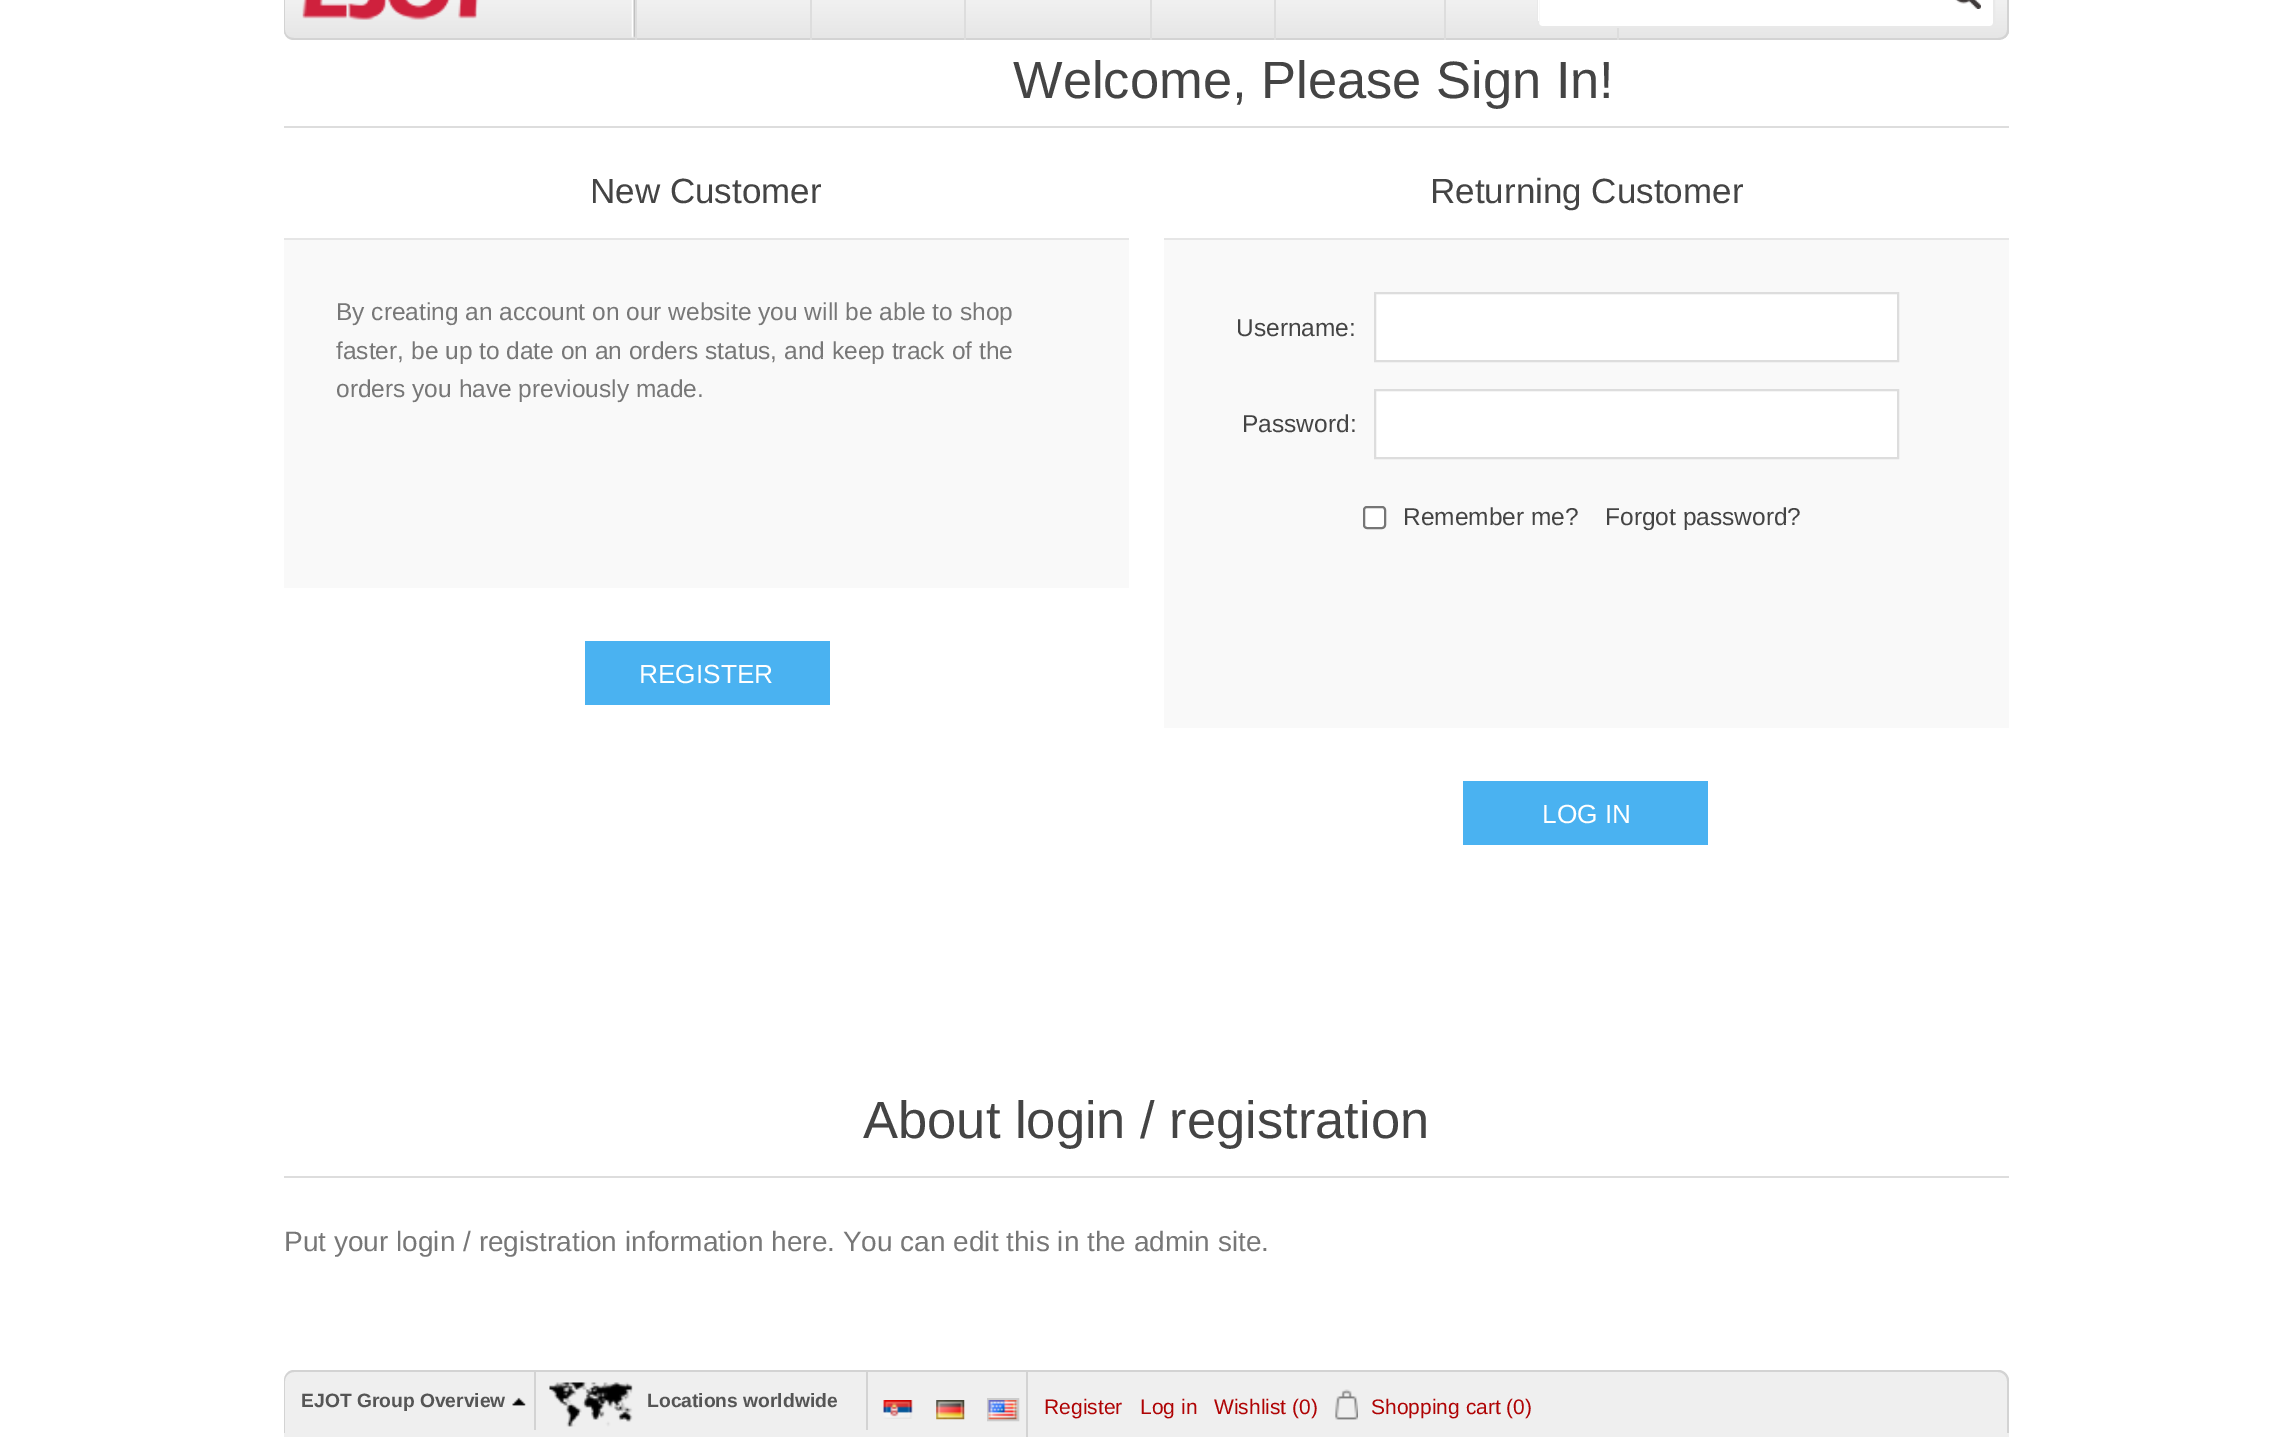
%!PS
<< /PageSize [2292 1437] >> setpagedevice
/m/moveto load def
/l/rlineto load def
/c/rcurveto load def
/z/closepath load def
/f/fill load def
/s/stroke load def
/q/gsave load def
/Q_/grestore load def
/w/setlinewidth load def
/C { dup -16 bitshift 255 div exch dup -8 bitshift 255 and 255 div exch 255 and 255 div setrgbcolor } def
/F { [ exch dup neg 0 0 3 -1 roll 0 0 ] selectfont } def
/T { moveto show } def
/R { rectfill } def
/Q { 5 dict begin { /r /h /w /y /x } { exch def } forall
  x r add y moveto x w add y 2 copy h add r arct x w add y h add x 1 index r arct
  x y h add x y r arct x y 2 copy exch w add exch r arct closepath end } def
/I { 5 dict begin { /h /w /y /x /name } { exch def } forall
  gsave x y translate w h scale
  w h 8 [w 0 0 h 0 0] name (r) file false 3 colorimage grestore end } def
0 1437 translate 1 -1 scale
4 setmiterlimit
16#FFFFFF C
0 0 2292 1437 R
q
284 -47 m 1725 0 l 0 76 l 0 6 -5 11 -11 11 c -1703 0 l -6 0 -11 -5 -11 -11 c z clip newpath
q 284 0 m 1725 0 l 0 39 l -1725 0 l z clip newpath
<< /ShadingType 2 /ColorSpace /DeviceRGB /Coords [1146 -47 1146 39] /Extend [true true] /Function << /FunctionType 2 /Domain [0 1] /C0 [1 1 1] /C1 [.902 .902 .902] /N 1 >> >> shfill Q_
Q_
16#D3D3D3 C
284 -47 m 1725 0 l 0 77 l 0 6 -5 10 -11 10 c -1704 0 l -6 0 -10 -4 -10 -10 c z 285 -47 m 1722 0 l 0 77 l 0 5 -4 8 -9 8 c -1704 0 l -5 0 -9 -3 -9 -8 c z eofill
16#FFFFFF C
1538 -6 456 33 4 Q q f Q_
16#E9E9E9 C
2 w
s
16#FFFFFF C
1538 0 1 21 R
(1.rgb) 1955 0 26 9 I
(2.rgb) 631 0 4 38 I
(3.rgb) 302 0 177 20 I
16#DDDDDD C
635 0 2 40 R
810 0 2 40 R
964 0 2 40 R
1150 0 2 40 R
1274 0 2 40 R
1444 0 2 40 R
1617 28 2 12 R
284 126 1725 2 R
/LiberationSans-Regular 52.5 F
16#444444 C
(Welcome, Please Sign In!) 1013 98 T
/LiberationSans-Regular 35 F
(New Customer) 590 203 T
16#F9F9F9 C
284 240 845 348 R
16#E6E6E6 C
284 238 845 2 R
/LiberationSans-Regular 24.5 F
16#777777 C
(By creating an account on our website you will be able to shop) 336 320 T
(faster, be up to date on an orders status, and keep track of the) 336 359 T
(orders you have previously made.) 336 397 T
16#4AB2F1 C
585 641 245 64 R
/LiberationSans-Regular 26.25 F
16#FFFFFF C
(REGISTER) 639 683 T
/LiberationSans-Regular 35 F
16#444444 C
(Returning Customer) 1430 203 T
16#F9F9F9 C
1164 240 845 488 R
16#E6E6E6 C
1164 238 845 2 R
/LiberationSans-Regular 24.5 F
16#444444 C
(Username:) 1236 336 T
16#FFFFFF C
1375 293 m 523 0 l 0 68 l -523 0 l z q f Q_
16#DDDDDD C
s
16#444444 C
(Password:) 1242 432 T
16#FFFFFF C
1375 390 m 523 0 l 0 68 l -523 0 l z q f Q_
16#DDDDDD C
s
16#FFFFFF C
1364 507 21 21 3 Q q f Q_
16#767676 C
s
16#444444 C
(Remember me?) 1403 525 T
(Forgot password?) 1605 525 T
16#4AB2F1 C
1463 781 245 64 R
/LiberationSans-Regular 26.25 F
16#FFFFFF C
(LOG IN) 1542 823 T
16#DDDDDD C
284 1176 1725 2 R
/LiberationSans-Regular 52.5 F
16#444444 C
(About login / registration) 863 1138 T
/LiberationSans-Regular 28 F
16#777777 C
(Put your login / registration information here. You can edit this in the admin site.) 284 1251 T
16#EFEFEF C
295 1370 m 1703 0 l 6 0 11 5 11 11 c 0 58 l -1725 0 l 0 -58 l 0 -6 5 -11 11 -11 c z f
16#D3D3D3 C
294 1370 m 1704 0 l 6 0 11 5 11 11 c 0 52 l -1725 0 l 0 -52 l 0 -6 4 -11 10 -11 c z 294 1372 m 1704 0 l 5 0 9 4 9 9 c 0 52 l -1722 0 l 0 -52 l 0 -5 4 -9 9 -9 c z eofill
534 1372 2 58 R
(4.rgb) 512 1397 14 9 I
/LiberationSans-Bold 19.25 F
16#555555 C
(EJOT Group Overview) 301 1407 T
16#D3D3D3 C
866 1372 2 58 R
(5.rgb) 549 1382 84 45 I
16#555555 C
(Locations worldwide) 647 1407 T
16#D3D3D3 C
1026 1372 2 65 R
(6.rgb) 883 1400 30 19 I
(7.rgb) 936 1400 29 20 I
16#CCCCCC C
988 1399 30 21 rectstroke
(8.rgb) 988 1400 30 20 I
/LiberationSans-Regular 21 F
16#AF0304 C
(Register) 1044 1414 T
(Log in) 1140 1414 T
(Wishlist \(0\)) 1214 1414 T
(9.rgb) 1335 1389 23 31 I
(Shopping cart \(0\)) 1371 1414 T
showpage
